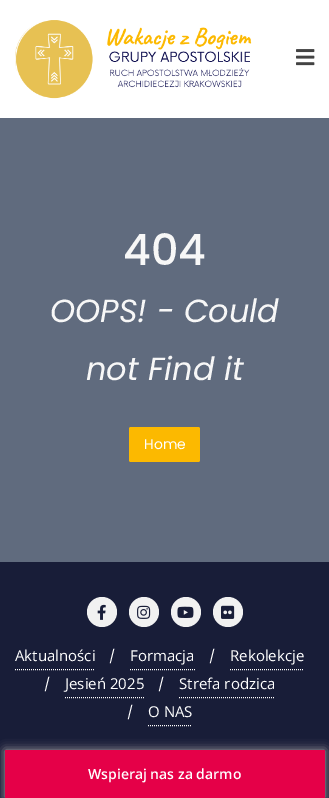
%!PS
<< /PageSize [329 798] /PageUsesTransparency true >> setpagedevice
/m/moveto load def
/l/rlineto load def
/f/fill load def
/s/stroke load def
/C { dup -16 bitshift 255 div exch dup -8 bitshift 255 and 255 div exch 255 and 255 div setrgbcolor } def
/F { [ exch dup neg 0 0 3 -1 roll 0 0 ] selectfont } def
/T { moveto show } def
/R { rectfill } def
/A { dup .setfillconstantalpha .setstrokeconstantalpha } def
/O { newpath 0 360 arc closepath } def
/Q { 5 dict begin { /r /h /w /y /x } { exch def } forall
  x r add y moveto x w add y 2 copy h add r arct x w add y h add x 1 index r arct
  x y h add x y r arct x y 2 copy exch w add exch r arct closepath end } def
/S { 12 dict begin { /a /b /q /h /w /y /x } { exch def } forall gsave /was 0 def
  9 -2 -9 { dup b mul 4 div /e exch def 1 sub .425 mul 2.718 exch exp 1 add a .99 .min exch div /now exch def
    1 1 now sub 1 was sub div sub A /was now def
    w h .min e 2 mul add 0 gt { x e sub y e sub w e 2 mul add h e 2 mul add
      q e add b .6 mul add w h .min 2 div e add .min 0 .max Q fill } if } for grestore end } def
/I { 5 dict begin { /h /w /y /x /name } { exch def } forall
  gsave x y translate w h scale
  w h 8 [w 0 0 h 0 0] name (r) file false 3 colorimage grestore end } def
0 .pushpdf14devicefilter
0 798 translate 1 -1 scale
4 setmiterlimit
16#FFFFFF C
0 0 329 798 R
(1.rgb) 15 20 237 79 I
(2.rgb) 296 49 19 17 I
16#606B7E C
0 118 329 444 R
/Poppins-Medium 43 F
16#F7F7F7 C
(404) 123 265 T
/Poppins-Italic 32 F
(OOPS! - Could) 50 322 T
(not Find it) 86 380 T
16#FCB900 C
129 427 71 35 2 Q f
/Poppins-Regular 14 F
16#FFFFFF C
(Home) 144 449 T
16#181D38 C
0 562 329 236 R
16#F1F1F1 C
102 612 15 O f
(3.rgb) 97 604 9 16 I
144 612 15 O f
(4.rgb) 137 605 14 14 I
186 612 15 O f
(5.rgb) 177 606 17 12 I
228 612 15 O f
(6.rgb) 221 605 14 14 I
16#FFFFFF C
[1 1] 0 setdash
15 669.5 m 80 0 l s
/OpenSans-Regular 15 F
(Aktualności) 15 661 T
/Poppins-Regular 13 F
(/) 109 661 T
130 669.5 m 65 0 l s
/OpenSans-Regular 15 F
(Formacja) 130 661 T
/Poppins-Regular 13 F
(/) 209 661 T
230 669.5 m 74 0 l s
/OpenSans-Regular 15 F
(Rekolekcje) 230 661 T
/Poppins-Regular 13 F
(/) 44 689 T
65 697.5 m 79 0 l s
/OpenSans-Regular 15 F
(Jesień 2025) 65 689 T
/Poppins-Regular 13 F
(/) 158 689 T
179 697.5 m 96 0 l s
/OpenSans-Regular 15 F
(Strefa rodzica) 179 689 T
/Poppins-Regular 13 F
(/) 127 717 T
148 725.5 m 44 0 l s
/OpenSans-Regular 15 F
(O NAS) 148 717 T
16#AAAAAA C
5 750 320 48 0 5 1 S
16#E50048 C
5 750 320 48 R
/OpenSans-SemiBold 14 F
16#FFFFFF C
(Wspieraj nas za darmo) 88 779 T
.poppdf14devicefilter showpage
